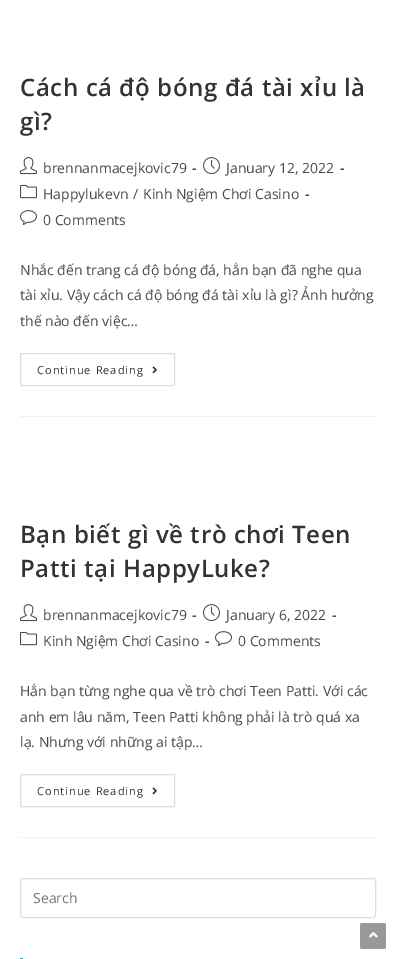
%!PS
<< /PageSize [396 959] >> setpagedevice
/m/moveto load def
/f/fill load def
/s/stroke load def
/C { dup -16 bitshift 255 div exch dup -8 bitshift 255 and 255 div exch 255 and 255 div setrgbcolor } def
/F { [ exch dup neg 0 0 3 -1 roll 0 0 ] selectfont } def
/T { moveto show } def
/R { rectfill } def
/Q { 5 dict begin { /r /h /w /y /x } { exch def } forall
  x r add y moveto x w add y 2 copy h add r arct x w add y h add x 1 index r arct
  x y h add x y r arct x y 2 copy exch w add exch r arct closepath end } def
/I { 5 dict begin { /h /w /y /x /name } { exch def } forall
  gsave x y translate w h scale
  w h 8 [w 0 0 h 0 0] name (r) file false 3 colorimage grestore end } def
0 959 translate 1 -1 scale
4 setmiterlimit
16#FFFFFF C
0 0 396 959 R
16#F1F1F1 C
20 416 356 1 R
/OpenSans-SemiBold 24 F
16#333333 C
20 96 m .6 0 (Cách cá độ bóng đá tài xỉu là) ashow
20 130 m .6 0 (gì?) ashow
(1.rgb) 20 157 17 18 I
/OpenSans-Regular 14 F
16#4A4A4A C
(brennanmacejkovic79) 43 173 T
/OpenSans-Bold 14 F
(-) 192 173 T
(2.rgb) 203 157 17 18 I
/OpenSans-Regular 14 F
(January 12, 2022) 226 173 T
/OpenSans-Bold 14 F
(-) 340 173 T
(3.rgb) 20 184 17 15 I
/OpenSans-Regular 14 F
(Happylukevn) 43 199 T
(/) 133 199 T
(Kinh Ngiệm Chơi Casino) 143 199 T
/OpenSans-Bold 14 F
(-) 305 199 T
(4.rgb) 20 210 17 15 I
/OpenSans-Regular 14 F
(0 Comments) 43 225 T
(Nhắc đến trang cá độ bóng đá, hẳn bạn đã nghe qua) 20 275 T
(tài xỉu. Vậy cách cá độ bóng đá tài xỉu là gì? Ảnh hưởng) 20 300 T
(thế nào đến việc…) 20 326 T
16#DDDDDD C
20.5 353.5 154 32 1.5 Q s
/OpenSans-Regular 11 F
16#333333 C
37 374 m 1 0 (Continue Reading) ashow
(5.rgb) 152 366 5 8 I
16#F1F1F1 C
20 837 356 1 R
/OpenSans-SemiBold 24 F
16#333333 C
20 543 m .6 0 (Bạn biết gì về trò chơi Teen) ashow
20 577 m .6 0 (Patti tại HappyLuke?) ashow
(1.rgb) 20 604 17 18 I
/OpenSans-Regular 14 F
16#4A4A4A C
(brennanmacejkovic79) 43 620 T
/OpenSans-Bold 14 F
(-) 192 620 T
(2.rgb) 203 604 17 18 I
/OpenSans-Regular 14 F
(January 6, 2022) 226 620 T
/OpenSans-Bold 14 F
(-) 332 620 T
(3.rgb) 20 631 17 15 I
/OpenSans-Regular 14 F
(Kinh Ngiệm Chơi Casino) 43 646 T
/OpenSans-Bold 14 F
(-) 205 646 T
(4.rgb) 215 631 17 15 I
/OpenSans-Regular 14 F
(0 Comments) 238 646 T
(Hẳn bạn từng nghe qua về trò chơi Teen Patti. Với các) 20 696 T
(anh em lâu năm, Teen Patti không phải là trò quá xa) 20 722 T
(lạ. Nhưng với những ai tập…) 20 747 T
16#DDDDDD C
20.5 774.5 154 32 1.5 Q s
/OpenSans-Regular 11 F
16#333333 C
37 795 m 1 0 (Continue Reading) ashow
(5.rgb) 152 787 5 8 I
16#DDDDDD C
20.5 878.5 355 39 2.5 Q s
/OpenSans-Regular 14 F
16#757575 C
(Search) 33 903 T
16#13AFF0 C
20 958 3 1 R
16#999999 C
360 923 26 26 2 Q f
(6.rgb) 369 932 9 6 I
showpage
